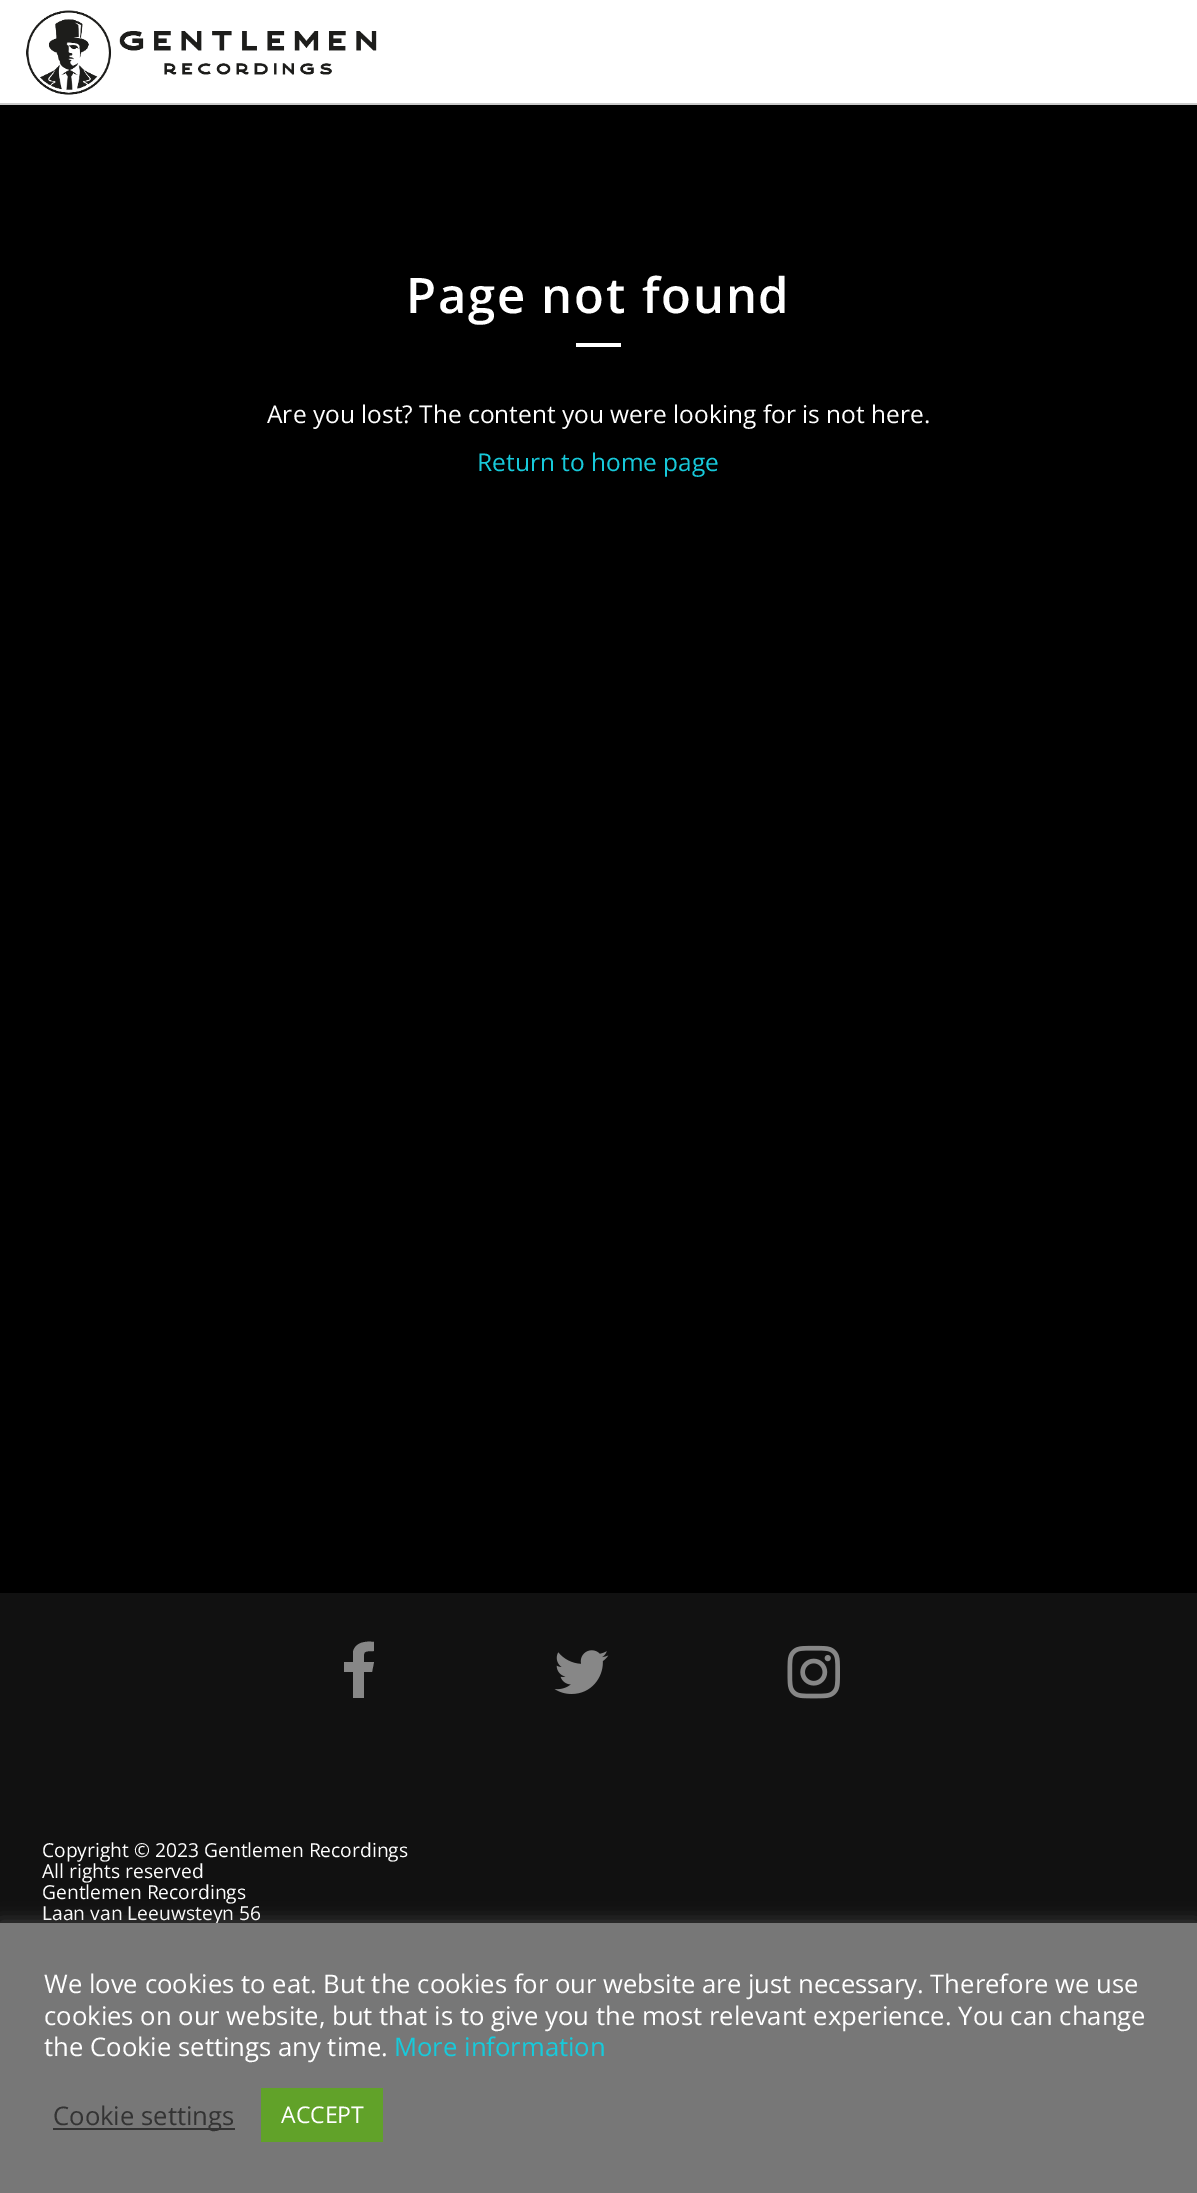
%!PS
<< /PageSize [1197 2193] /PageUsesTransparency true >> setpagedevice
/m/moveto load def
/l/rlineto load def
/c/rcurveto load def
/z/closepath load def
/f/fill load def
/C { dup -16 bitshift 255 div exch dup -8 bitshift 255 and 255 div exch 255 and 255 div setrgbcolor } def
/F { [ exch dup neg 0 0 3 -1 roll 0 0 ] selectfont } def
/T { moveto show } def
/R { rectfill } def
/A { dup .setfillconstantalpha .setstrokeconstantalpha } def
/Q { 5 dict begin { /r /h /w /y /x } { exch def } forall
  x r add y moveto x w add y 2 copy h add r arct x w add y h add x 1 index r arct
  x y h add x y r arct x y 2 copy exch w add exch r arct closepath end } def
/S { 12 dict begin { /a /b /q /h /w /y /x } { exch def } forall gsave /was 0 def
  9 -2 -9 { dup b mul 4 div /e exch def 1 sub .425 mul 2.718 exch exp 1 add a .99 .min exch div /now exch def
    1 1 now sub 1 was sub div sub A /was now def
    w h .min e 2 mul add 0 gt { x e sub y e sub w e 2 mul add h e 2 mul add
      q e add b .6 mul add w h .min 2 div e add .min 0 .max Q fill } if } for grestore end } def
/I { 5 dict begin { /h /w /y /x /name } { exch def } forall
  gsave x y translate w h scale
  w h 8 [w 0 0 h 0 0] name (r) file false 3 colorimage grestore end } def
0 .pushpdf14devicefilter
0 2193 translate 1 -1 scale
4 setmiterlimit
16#000000 C
0 0 1197 2193 R
16#FFFFFF C
0 0 1197 103 R
(1.rgb) 26 10 351 85 I
16#CCCCCC C
0 103 1197 2 R
/OpenSans-SemiBold 49 F
16#FFFFFF C
406 313 m 1.75 0 (Page not found) ashow
576 343 45 4 R
/OpenSans-Regular 24.5 F
(Are you lost? The content you were looking for is not here.) 267 423 T
16#17CADB C
(Return to home page) 477 471 T
16#111111 C
0 1593 1197 330 R
16#878787 C
374 1642 m -8 -1 -19 0 -21 10 c 0 10 l -9 0 l 0 10 l 9 0 l 0 26 l 11 0 l 0 -26 l 8 0 l 2 -10 l -10 0 l 0 -10 -2 -11 10 -11 c z f
(2.rgb) 554 1650 55 44 I
(3.rgb) 787 1645 53 54 I
/OpenSans-Regular 19.25 F
16#FFFFFF C
(Copyright © 2023 Gentlemen Recordings) 42 1857 T
(All rights reserved) 42 1878 T
(Gentlemen Recordings) 42 1899 T
(Laan van Leeuwsteyn 56) 42 1920 T
16#ACABAB C
0 1922 1197 271 0 9 .3 S
16#777777 C
0 1923 1197 270 R
/OpenSans-Regular 25.65 F
16#FFFFFF C
(We love cookies to eat. But the cookies for our website are just necessary. Therefore we use) 44 1993 T
(cookies on our website, but that is to give you the most relevant experience. You can change) 44 2025 T
(the Cookie settings any time.) 44 2056 T
16#17CADB C
(More information) 394 2056 T
16#333333 C
53 2128 182 2 R
(Cookie settings) 53 2125 T
16#61A229 C
261 2088 122 54 R
/OpenSans-Regular 23 F
16#FFFFFF C
(ACCEPT) 281 2123 T
.poppdf14devicefilter showpage
